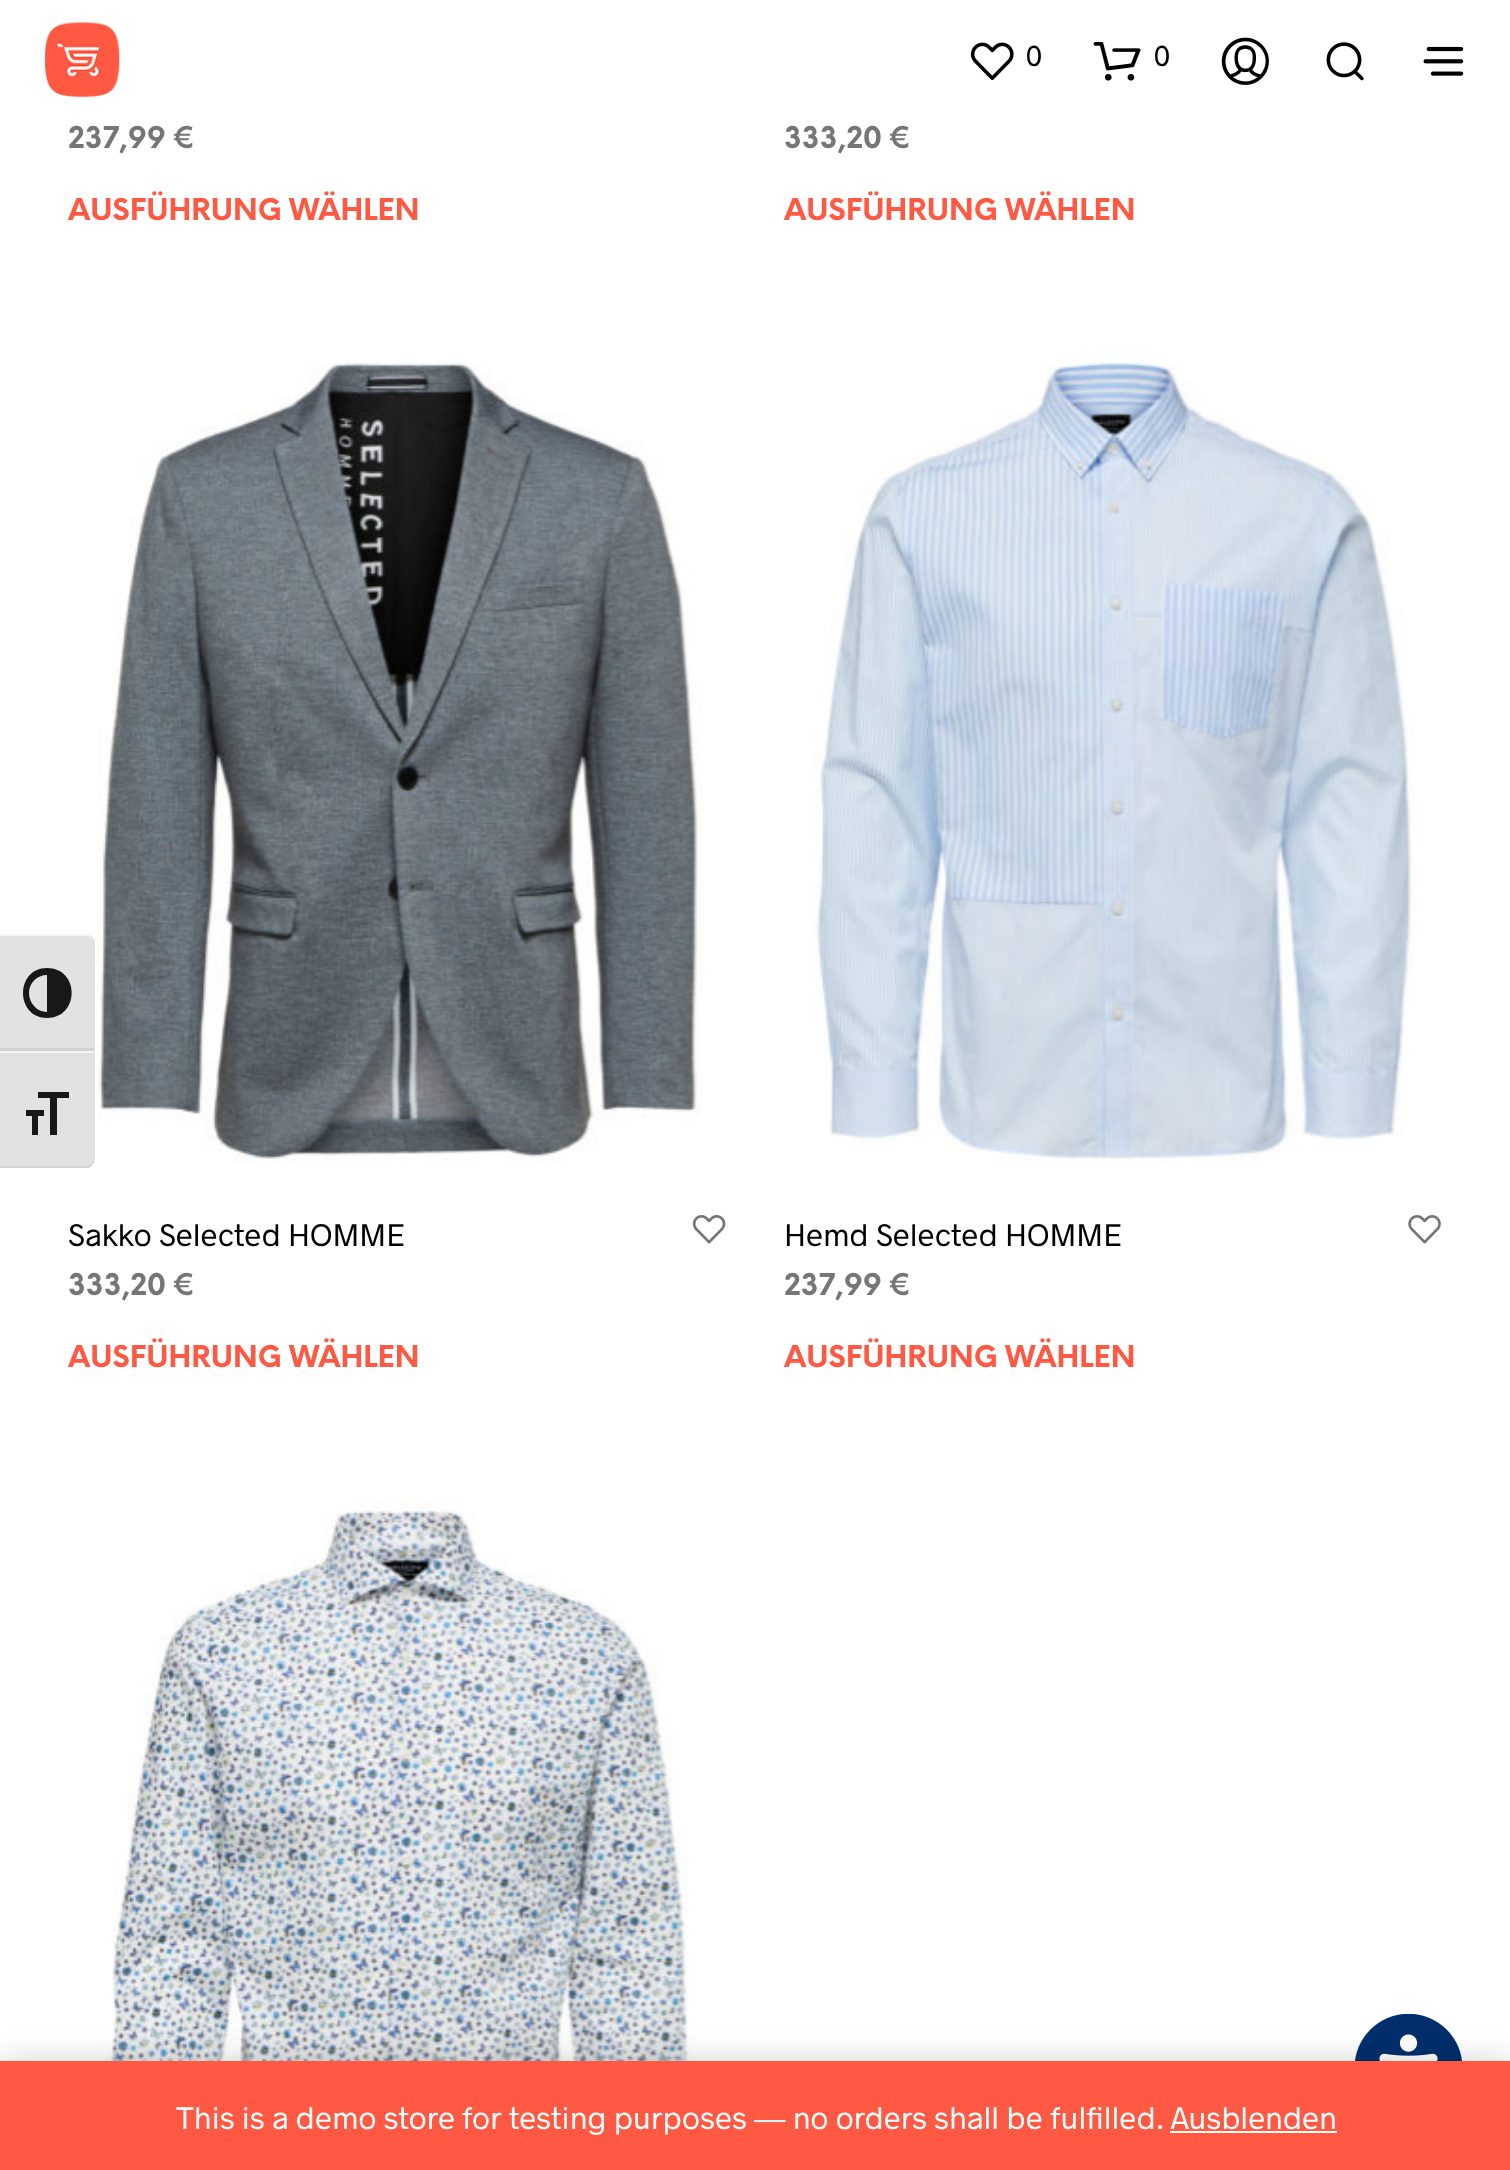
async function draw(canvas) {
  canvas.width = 1510;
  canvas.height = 2170;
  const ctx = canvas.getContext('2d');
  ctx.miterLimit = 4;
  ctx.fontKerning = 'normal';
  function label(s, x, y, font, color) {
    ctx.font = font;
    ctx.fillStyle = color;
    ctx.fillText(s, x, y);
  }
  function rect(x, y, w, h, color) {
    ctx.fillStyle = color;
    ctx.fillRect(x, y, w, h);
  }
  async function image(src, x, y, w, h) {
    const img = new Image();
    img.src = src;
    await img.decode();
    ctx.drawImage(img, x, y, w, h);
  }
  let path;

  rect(0, 0, 1510, 2170, '#fff');
  ctx.fillStyle = '#e2e2e2';
  ctx.beginPath();
  ctx.roundRect(0, 934, 95, 117, [0, 9, 0, 0]);
  ctx.fill();
  ctx.fillStyle = '#f5f5f5';
  path = new Path2D('M0 936H86C90 936 94 939 94 943C94 938 90 934 86 934H0Z');
  ctx.fill(path);
  rect(0, 1048, 94, 3, '#d2d2d2');
  ctx.fillStyle = '#181818';
  path = new Path2D('M47 968C15 968 15 1018 47 1018C80 1018 80 968 47 968ZM29 993C29 983 37 975 47 975V1012C37 1012 29 1003 29 993Z');
  ctx.fill(path);
  ctx.fillStyle = '#e2e2e2';
  ctx.beginPath();
  ctx.roundRect(0, 1051, 95, 117, [0, 0, 9, 0]);
  ctx.fill();
  rect(0, 1051, 94, 2, '#f5f5f5');
  ctx.fillStyle = '#d2d2d2';
  path = new Path2D('M88 1168C91 1167 94 1163 94 1159C94 1162 90 1166 86 1166H0V1168Z');
  ctx.fill(path);
  ctx.fillStyle = '#181818';
  path = new Path2D('M26 1110H44V1116H38V1135H32V1116H26ZM69 1098H57V1135H50V1098H38V1092H69Z');
  ctx.fill(path);
  await image('assets/img1.png', 45, 22, 75, 75);
  await image('assets/img2.png', 970, 42, 44, 38);
  label('0', 1026, 66, '29.25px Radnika', '#000');
  await image('assets/img3.png', 1093, 42, 48, 39);
  label('0', 1154, 66, '29.25px Radnika', '#000');
  await image('assets/img4.png', 1221, 37, 48, 48);
  await image('assets/img5.png', 1326, 42, 38, 39);
  await image('assets/img6.png', 1423, 46, 41, 30);
  label('237,99 €', 68, 148, 'bold 29.25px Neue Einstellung', '#767676');
  label('AUSFÜHRUNG WÄHLEN', 68, 220, 'bold 29.25px Neue Einstellung', '#ff5943');
  label('333,20 €', 784, 148, 'bold 29.25px Neue Einstellung', '#767676');
  label('AUSFÜHRUNG WÄHLEN', 784, 220, 'bold 29.25px Neue Einstellung', '#ff5943');
  await image('assets/img7.png', 98, 363, 604, 802);
  await image('assets/img8.png', 692, 1215, 34, 29);
  label('Sakko Selected HOMME', 68, 1246, '31.5px Radnika', '#000');
  label('333,20 €', 68, 1295, 'bold 29.25px Neue Einstellung', '#767676');
  label('AUSFÜHRUNG WÄHLEN', 68, 1367, 'bold 29.25px Neue Einstellung', '#ff5943');
  await image('assets/img9.png', 813, 350, 602, 816);
  await image('assets/img10.png', 1408, 1215, 33, 29);
  label('Hemd Selected HOMME', 784, 1246, '31.5px Radnika', '#000');
  label('237,99 €', 784, 1295, 'bold 29.25px Neue Einstellung', '#767676');
  label('AUSFÜHRUNG WÄHLEN', 784, 1367, 'bold 29.25px Neue Einstellung', '#ff5943');
  await image('assets/img11.png', 98, 1498, 591, 563);
  await image('assets/img12.png', 1355, 2014, 107, 47);
  ctx.fillStyle = '#00000033';
  ctx.filter = 'blur(16px)';
  ctx.beginPath();
  ctx.rect(0, 2063, 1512, 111);
  ctx.fill();
  ctx.filter = 'none';
  rect(0, 2061, 1510, 109, '#ff5943');
  label('This is a demo store for testing purposes — no orders shall be fulfilled. Ausblenden', 176, 2129, '31.5px Radnika', '#fff');
  rect(1170, 2131, 167, 2, '#fff');
}

draw(document.querySelector('canvas'));
